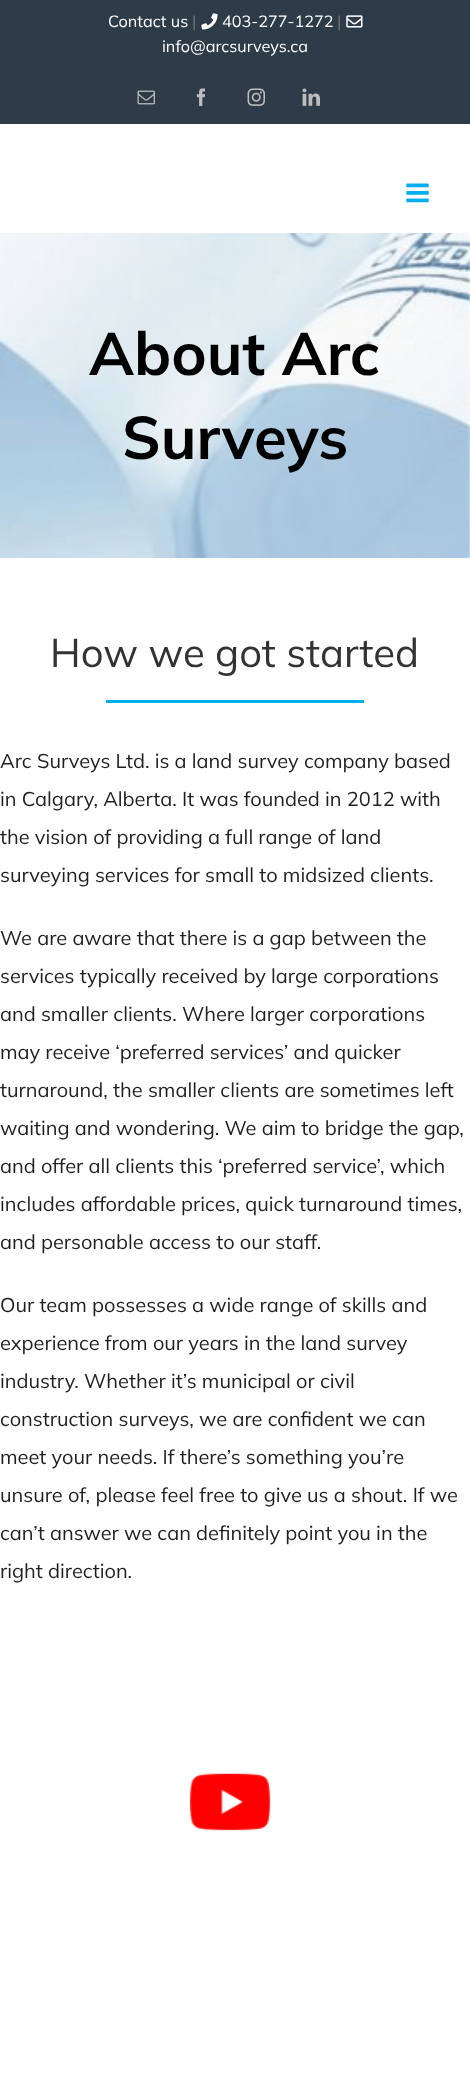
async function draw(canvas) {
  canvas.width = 470;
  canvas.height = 2091;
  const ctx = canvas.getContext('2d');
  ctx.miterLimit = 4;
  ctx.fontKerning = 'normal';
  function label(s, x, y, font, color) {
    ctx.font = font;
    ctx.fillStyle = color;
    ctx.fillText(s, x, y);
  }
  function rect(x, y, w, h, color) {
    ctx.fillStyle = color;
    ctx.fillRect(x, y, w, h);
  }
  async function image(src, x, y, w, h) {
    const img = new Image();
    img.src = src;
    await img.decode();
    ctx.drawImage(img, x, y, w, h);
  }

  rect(0, 0, 470, 2091, '#fff');
  rect(0, 0, 470, 124, '#2e3b48');
  label('Contact us', 108, 27, '16.25px Mulish', '#fff');
  label('|', 192, 27, '16.25px Mulish', '#747474');
  await image('assets/img1.png', 201, 13, 17, 17);
  label('403-277-1272', 222, 27, '16.25px Mulish', '#fff');
  label('|', 337, 27, '16.25px Mulish', '#747474');
  await image('assets/img2.png', 346, 15, 17, 13);
  label('info@arcsurveys.ca', 162, 52, '16.25px Mulish', '#fff');
  await image('assets/img3.png', 137, 90, 18, 15);
  await image('assets/img4.png', 196, 88, 10, 18);
  await image('assets/img5.png', 247, 88, 18, 18);
  await image('assets/img6.png', 302, 88, 18, 18);
  await image('assets/img7.png', 406, 183, 23, 20);
  await image('assets/img8.png', 0, 233, 470, 325);
  label('About Arc', 89, 375, 'bold 60px Mulish', '#000');
  label('Surveys', 122, 459, 'bold 60px Mulish', '#000');
  label('How we got started', 50, 667, '40px Mulish', '#333');
  rect(106, 700, 258, 3, '#00adee');
  label('Arc Surveys Ltd. is a land survey company based', 0, 768, '20px Mulish', '#221e20');
  label('in Calgary, Alberta. It was founded in 2012 with', 0, 806, '20px Mulish', '#221e20');
  label('the vision of providing a full range of land', 0, 844, '20px Mulish', '#221e20');
  label('surveying services for small to midsized clients.', 0, 882, '20px Mulish', '#221e20');
  label('We are aware that there is a gap between the', 0, 945, '20px Mulish', '#221e20');
  label('services typically received by large corporations', 0, 983, '20px Mulish', '#221e20');
  label('and smaller clients. Where larger corporations', 0, 1021, '20px Mulish', '#221e20');
  label('may receive ‘preferred services’ and quicker', 0, 1059, '20px Mulish', '#221e20');
  label('turnaround, the smaller clients are sometimes left', 0, 1097, '20px Mulish', '#221e20');
  label('waiting and wondering. We aim to bridge the gap,', 0, 1135, '20px Mulish', '#221e20');
  label('and offer all clients this ‘preferred service’, which', 0, 1173, '20px Mulish', '#221e20');
  label('includes affordable prices, quick turnaround times,', 0, 1211, '20px Mulish', '#221e20');
  label('and personable access to our staff.', 0, 1249, '20px Mulish', '#221e20');
  label('Our team possesses a wide range of skills and', 0, 1312, '20px Mulish', '#221e20');
  label('experience from our years in the land survey', 0, 1350, '20px Mulish', '#221e20');
  label('industry. Whether it’s municipal or civil', 0, 1388, '20px Mulish', '#221e20');
  label('construction surveys, we are confident we can', 0, 1426, '20px Mulish', '#221e20');
  label('meet your needs. If there’s something you’re', 0, 1464, '20px Mulish', '#221e20');
  label('unsure of, please feel free to give us a shout. If we', 0, 1502, '20px Mulish', '#221e20');
  label('can’t answer we can definitely point you in the', 0, 1540, '20px Mulish', '#221e20');
  label('right direction.', 0, 1578, '20px Mulish', '#221e20');
  await image('assets/img9.png', 190, 1773, 81, 58);
}

draw(document.querySelector('canvas'));
